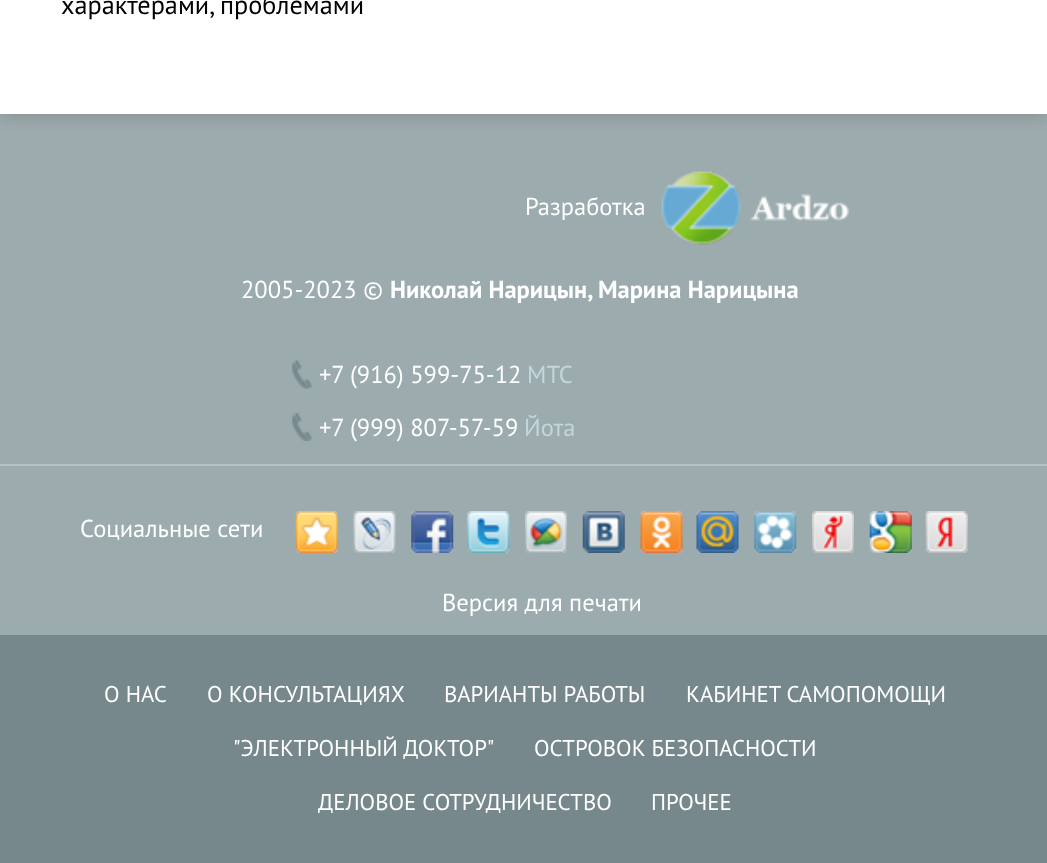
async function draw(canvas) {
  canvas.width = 1047;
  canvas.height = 863;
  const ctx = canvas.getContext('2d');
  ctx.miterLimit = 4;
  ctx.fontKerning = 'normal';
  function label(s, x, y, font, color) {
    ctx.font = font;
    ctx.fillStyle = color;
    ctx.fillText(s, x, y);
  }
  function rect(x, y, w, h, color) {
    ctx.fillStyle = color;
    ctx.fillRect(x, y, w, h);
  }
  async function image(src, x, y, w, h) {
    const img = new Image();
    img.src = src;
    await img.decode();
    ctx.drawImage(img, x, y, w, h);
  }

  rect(0, 0, 1047, 863, '#9cabae');
  ctx.fillStyle = '#7a7a7ab3';
  ctx.filter = 'blur(9px)';
  ctx.beginPath();
  ctx.rect(0, -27, 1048, 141);
  ctx.fill();
  ctx.filter = 'none';
  rect(0, 0, 1047, 114, '#fff');
  label('характерами, проблемами', 61, 14, '26.25px PT Sans', '#000');
  await image('assets/img1.png', 661, 171, 188, 74);
  label('Разработка', 525, 215, '24.5px PT Sans', '#fff');
  label('2005-2023 ©', 241, 298, '24.5px PT Sans', '#fff');
  label('Николай Нарицын, Марина Нарицына', 390, 298, 'bold 24.5px PT Sans', '#fff');
  await image('assets/img2.png', 292, 360, 20, 29);
  label('+7 (916) 599-75-12', 319, 383, '24.5px PT Sans', '#fff');
  label('МТС', 527, 383, '24.5px PT Sans', '#c5d6da');
  await image('assets/img3.png', 292, 413, 20, 28);
  label('+7 (999) 807-57-59', 319, 436, '24.5px PT Sans', '#fff');
  label('Йота', 524, 436, '24.5px PT Sans', '#c5d6da');
  rect(0, 464, 1047, 2, '#b2c2c5');
  label('Социальные сети', 80, 537, '24.5px PT Sans', '#fff');
  await image('assets/img4.png', 295, 511, 43, 42);
  await image('assets/img5.png', 353, 511, 43, 42);
  await image('assets/img6.png', 411, 511, 43, 42);
  await image('assets/img7.png', 467, 511, 43, 42);
  await image('assets/img8.png', 525, 511, 42, 42);
  await image('assets/img9.png', 582, 511, 43, 42);
  await image('assets/img10.png', 640, 511, 43, 42);
  await image('assets/img11.png', 696, 511, 43, 42);
  await image('assets/img12.png', 754, 511, 43, 42);
  await image('assets/img13.png', 812, 511, 42, 42);
  await image('assets/img14.png', 869, 511, 43, 42);
  await image('assets/img15.png', 925, 511, 43, 42);
  label('Версия для печати', 442, 611, '24.5px PT Sans', '#fff');
  rect(0, 635, 1047, 228, '#76888c');
  label('О НАС', 104, 702, '22.75px PT Sans', '#fff');
  label('О КОНСУЛЬТАЦИЯХ', 207, 702, '22.75px PT Sans', '#fff');
  label('ВАРИАНТЫ РАБОТЫ', 444, 702, '22.75px PT Sans', '#fff');
  label('КАБИНЕТ САМОПОМОЩИ', 686, 702, '22.75px PT Sans', '#fff');
  label('"ЭЛЕКТРОННЫЙ ДОКТОР"', 233, 756, '22.75px PT Sans', '#fff');
  label('ОСТРОВОК БЕЗОПАСНОСТИ', 534, 756, '22.75px PT Sans', '#fff');
  label('ДЕЛОВОЕ СОТРУДНИЧЕСТВО', 318, 810, '22.75px PT Sans', '#fff');
  label('ПРОЧЕЕ', 651, 810, '22.75px PT Sans', '#fff');
}

draw(document.querySelector('canvas'));
